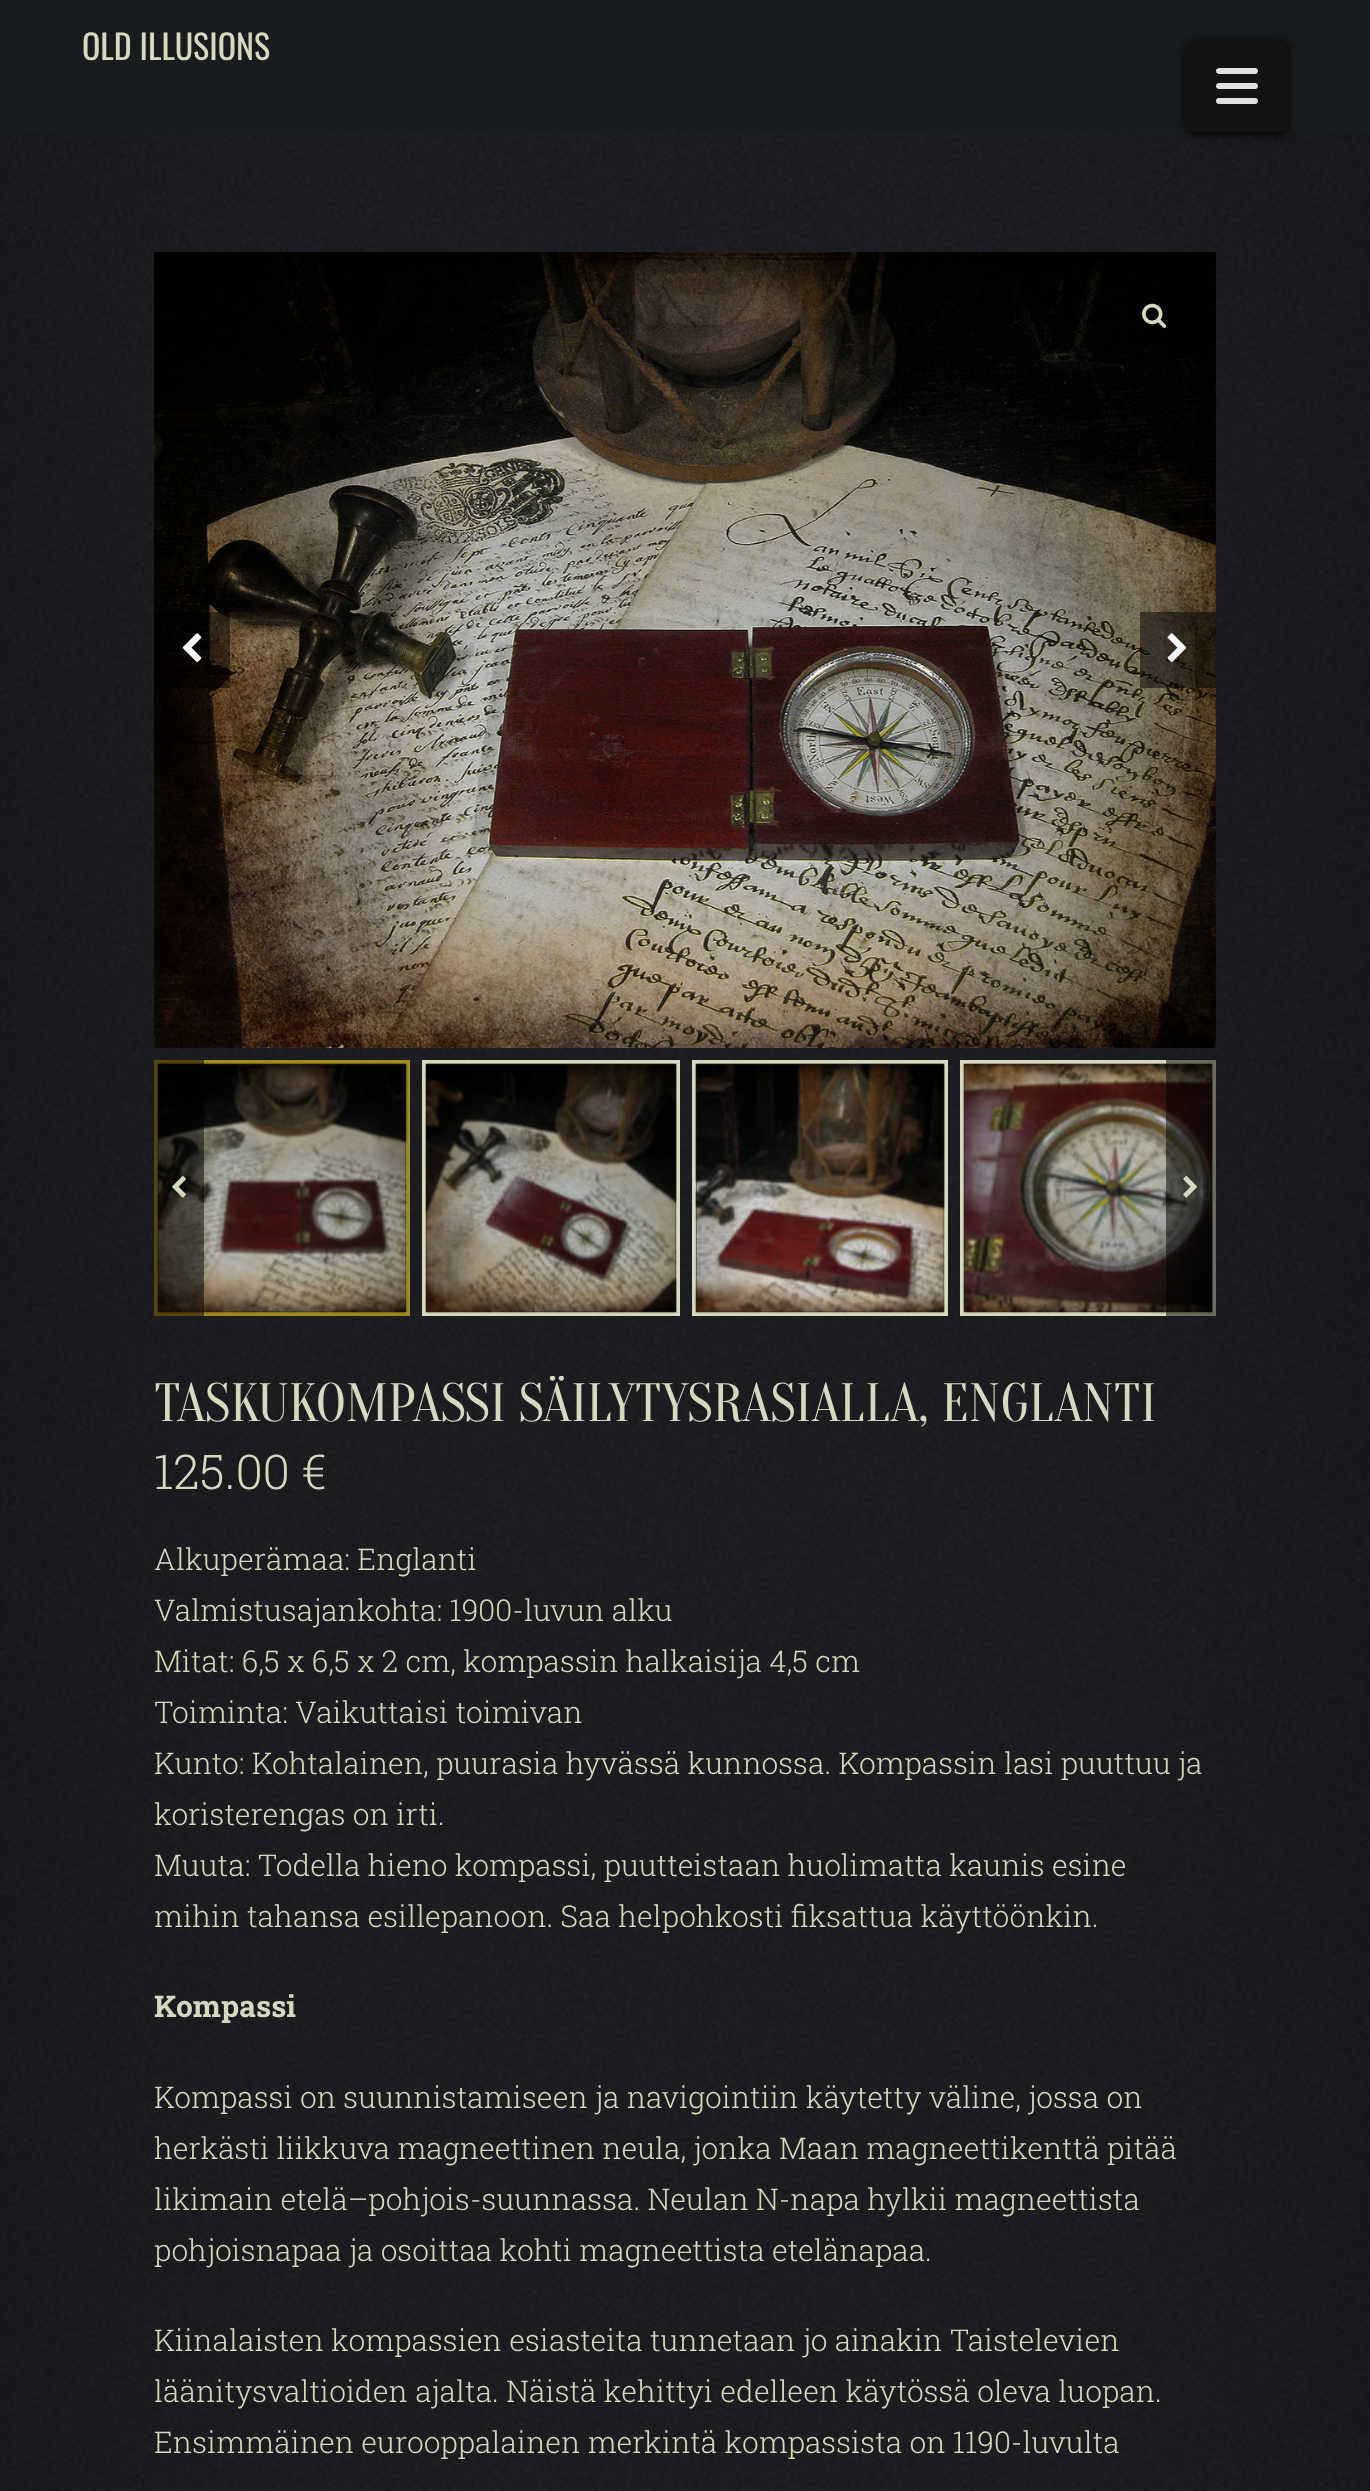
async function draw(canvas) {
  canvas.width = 1370;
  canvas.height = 2491;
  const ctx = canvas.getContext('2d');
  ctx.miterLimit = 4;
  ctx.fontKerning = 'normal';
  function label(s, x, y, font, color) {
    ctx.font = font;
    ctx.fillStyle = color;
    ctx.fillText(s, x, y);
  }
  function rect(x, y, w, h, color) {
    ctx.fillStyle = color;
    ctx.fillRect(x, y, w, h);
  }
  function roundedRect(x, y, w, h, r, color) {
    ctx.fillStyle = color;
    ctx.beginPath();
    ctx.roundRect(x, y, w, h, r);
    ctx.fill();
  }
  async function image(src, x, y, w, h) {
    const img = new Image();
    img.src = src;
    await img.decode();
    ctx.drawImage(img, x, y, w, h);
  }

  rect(0, 0, 1370, 2491, '#fff');
  await image('assets/img1.png', 0, 132, 1370, 2359);
  rect(0, 0, 1370, 132, '#191c1e');
  label('OLD ILLUSIONS', 82, 60, '34px Oswald', '#d6d9be');
  ctx.fillStyle = '#000';
  ctx.filter = 'blur(4px)';
  ctx.beginPath();
  ctx.roundRect(1186, 42, 102, 92, 8);
  ctx.fill();
  ctx.filter = 'none';
  roundedRect(1186, 40, 102, 92, 8, '#121212');
  await image('assets/img2.png', 1216, 68, 42, 36);
  await image('assets/img3.png', 154, 252, 1062, 796);
  await image('assets/img4.png', 1142, 303, 25, 25);
  rect(154, 612, 76, 76, '#00000080');
  await image('assets/img5.png', 182, 633, 20, 29);
  rect(1140, 612, 76, 76, '#00000080');
  await image('assets/img6.png', 1167, 633, 20, 29);
  ctx.strokeStyle = '#a38a1d';
  ctx.lineWidth = 4;
  ctx.strokeRect(156, 1062, 252, 252);
  await image('assets/img7.png', 157, 1063, 251, 251);
  ctx.strokeStyle = '#d6d9be';
  ctx.strokeRect(424, 1062, 254, 252);
  await image('assets/img8.png', 425, 1063, 252, 251);
  ctx.strokeRect(694, 1062, 252, 252);
  await image('assets/img9.png', 694, 1063, 251, 251);
  ctx.strokeRect(962, 1062, 252, 252);
  await image('assets/img10.png', 962, 1063, 251, 251);
  rect(154, 1060, 50, 256, '#00000080');
  await image('assets/img11.png', 172, 1176, 14, 22);
  rect(1166, 1060, 50, 256, '#00000080');
  await image('assets/img12.png', 1183, 1176, 14, 22);
  ctx.save();
  ctx.beginPath();
  ctx.rect(154, 1376, 1062, 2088);
  ctx.clip();
  label('TASKUKOMPASSI SÄILYTYSRASIALLA, ENGLANTI', 154, 1421, '54px Oranienbaum', '#d6d9be');
  ctx.restore();
  label('125.00 €', 154, 1489, '300 48px Roboto Slab', '#d6d9be');
  label('Alkuperämaa: Englanti', 154, 1570, '300 30px Roboto Slab', '#d6d9be');
  label('Valmistusajankohta: 1900-luvun alku', 154, 1621, '300 30px Roboto Slab', '#d6d9be');
  label('Mitat: 6,5 x 6,5 x 2 cm, kompassin halkaisija 4,5 cm', 154, 1672, '300 30px Roboto Slab', '#d6d9be');
  label('Toiminta: Vaikuttaisi toimivan', 154, 1723, '300 30px Roboto Slab', '#d6d9be');
  label('Kunto: Kohtalainen, puurasia hyvässä kunnossa. Kompassin lasi puuttuu ja', 154, 1774, '300 30px Roboto Slab', '#d6d9be');
  label('koristerengas on irti.', 154, 1825, '300 30px Roboto Slab', '#d6d9be');
  label('Muuta: Todella hieno kompassi, puutteistaan huolimatta kaunis esine', 154, 1876, '300 30px Roboto Slab', '#d6d9be');
  label('mihin tahansa esillepanoon. Saa helpohkosti fiksattua käyttöönkin.', 154, 1927, '300 30px Roboto Slab', '#d6d9be');
  label('Kompassi', 154, 2017, 'bold 30px Roboto Slab', '#d6d9be');
  label('Kompassi on suunnistamiseen ja navigointiin käytetty väline, jossa on', 154, 2108, '300 30px Roboto Slab', '#d6d9be');
  label('herkästi liikkuva magneettinen neula, jonka Maan magneettikenttä pitää', 154, 2159, '300 30px Roboto Slab', '#d6d9be');
  label('likimain etelä–pohjois-suunnassa. Neulan N-napa hylkii magneettista', 154, 2210, '300 30px Roboto Slab', '#d6d9be');
  label('pohjoisnapaa ja osoittaa kohti magneettista etelänapaa.', 154, 2261, '300 30px Roboto Slab', '#d6d9be');
  label('Kiinalaisten kompassien esiasteita tunnetaan jo ainakin Taistelevien', 154, 2351, '300 30px Roboto Slab', '#d6d9be');
  label('läänitysvaltioiden ajalta. Näistä kehittyi edelleen käytössä oleva luopan.', 154, 2402, '300 30px Roboto Slab', '#d6d9be');
  label('Ensimmäinen eurooppalainen merkintä kompassista on 1190-luvulta', 154, 2453, '300 30px Roboto Slab', '#d6d9be');
}

draw(document.querySelector('canvas'));
